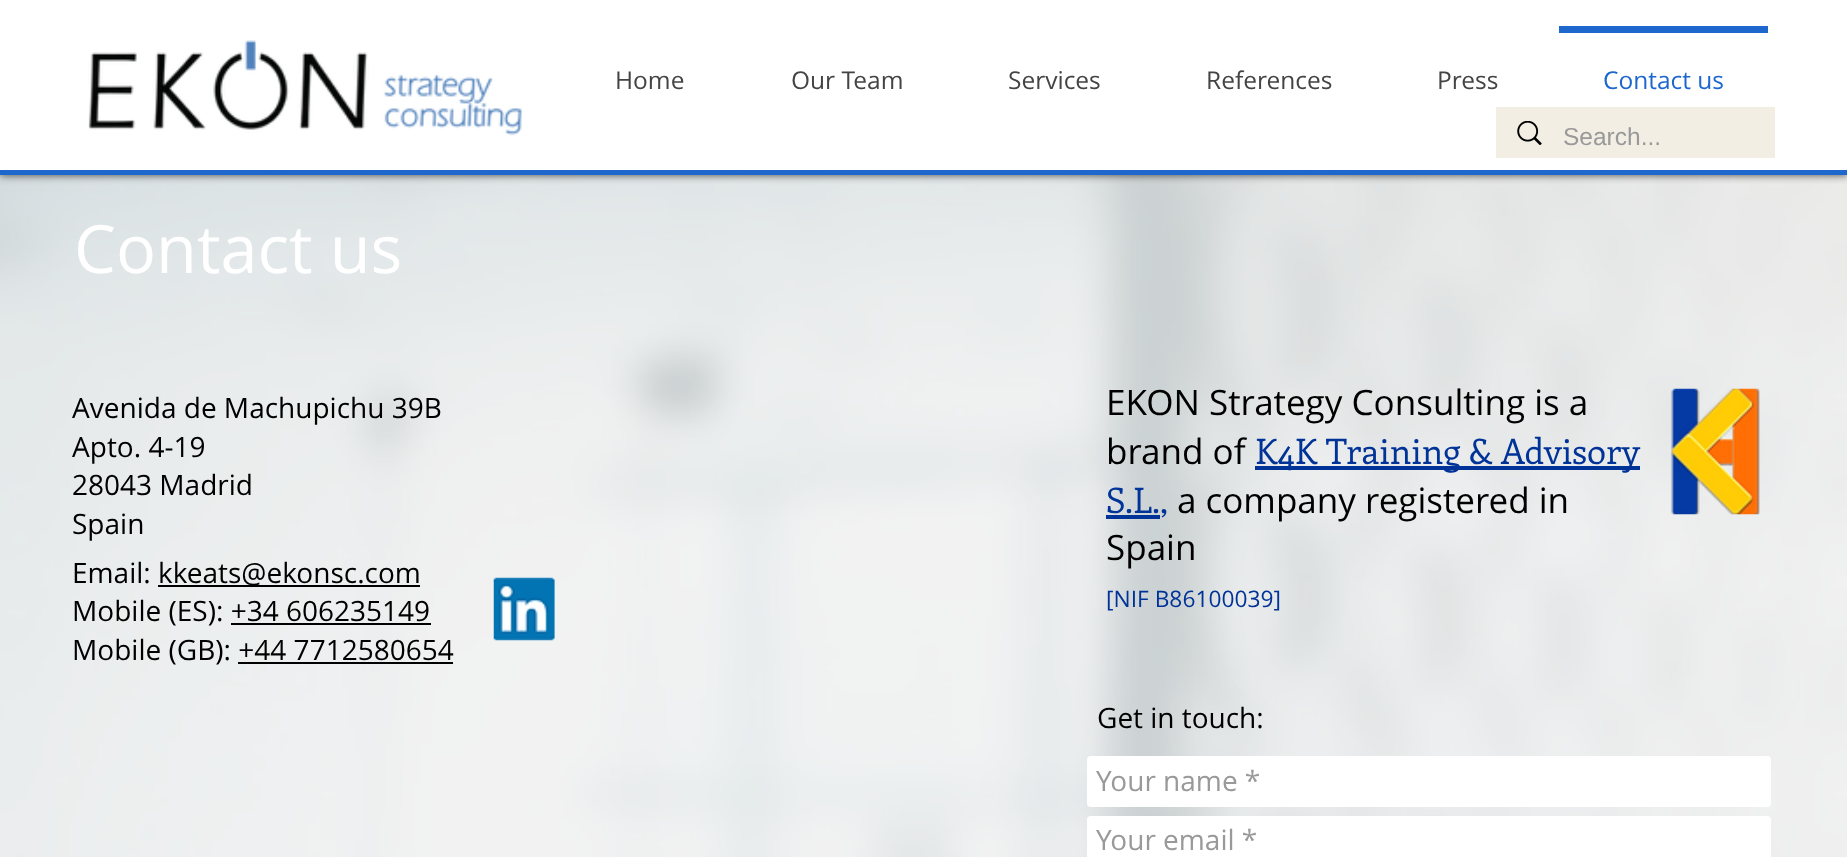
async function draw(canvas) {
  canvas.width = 1847;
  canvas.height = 857;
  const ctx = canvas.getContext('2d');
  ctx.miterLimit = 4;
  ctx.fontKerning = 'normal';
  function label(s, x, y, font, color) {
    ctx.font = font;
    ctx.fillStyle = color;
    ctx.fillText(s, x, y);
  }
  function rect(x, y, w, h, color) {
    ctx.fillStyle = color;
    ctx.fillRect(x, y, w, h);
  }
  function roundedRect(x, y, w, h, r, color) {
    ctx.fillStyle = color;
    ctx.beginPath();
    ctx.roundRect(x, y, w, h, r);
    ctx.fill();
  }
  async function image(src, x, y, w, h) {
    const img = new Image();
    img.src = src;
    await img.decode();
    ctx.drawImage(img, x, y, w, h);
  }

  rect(0, 0, 1847, 857, '#eee');
  await image('assets/img5.png', 0, 175, 1847, 682);
  ctx.fillStyle = '#000000b3';
  ctx.filter = 'blur(4.5px)';
  ctx.beginPath();
  ctx.rect(0, 0, 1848, 175);
  ctx.fill();
  ctx.filter = 'none';
  rect(0, 0, 1847, 170, '#fff');
  rect(0, 170, 1847, 5, '#1d67cd');
  await image('assets/img1.png', 88, 40, 434, 96);
  label('Home', 615, 89, '24.5px Open Sans', '#444');
  label('Our Team', 791, 89, '24.5px Open Sans', '#444');
  label('Services', 1008, 89, '24.5px Open Sans', '#444');
  label('References', 1206, 89, '24.5px Open Sans', '#444');
  label('Press', 1437, 89, '24.5px Open Sans', '#444');
  rect(1559, 26, 209, 7, '#1d67cd');
  label('Contact us', 1603, 89, '24.5px Open Sans', '#1d67cd');
  rect(1496, 107, 279, 51, '#f2eee4');
  await image('assets/img2.png', 1517, 121, 25, 24);
  label('Search...', 1563, 145, '24.5px Liberation Sans', '#999');
  label('Contact us', 74, 273, '66.5px Open Sans', '#fff');
  label('Avenida de Machupichu 39B', 72, 418, '28px Open Sans', '#000');
  label('Apto. 4-19', 72, 457, '28px Open Sans', '#000');
  label('28043 Madrid', 72, 495, '28px Open Sans', '#000');
  label('Spain', 72, 534, '28px Open Sans', '#000');
  label('EKON Strategy Consulting is a', 1106, 415, '35px Open Sans', '#000');
  label('brand of', 1106, 464, '35px Open Sans', '#000');
  rect(1255, 466, 385, 4, '#003397');
  label('K4K Training & Advisory', 1255, 464, '35px Enriqueta', '#003397');
  rect(1106, 515, 54, 4, '#003397');
  label('S.L.,', 1106, 513, '35px Enriqueta', '#003397');
  label('a company registered in', 1177, 513, '35px Open Sans', '#000');
  label('Spain', 1106, 560, '35px Open Sans', '#000');
  label('[NIF B86100039]', 1106, 607, '22.75px Open Sans', '#003397');
  await image('assets/img3.png', 1670, 388, 90, 127);
  label('Email:', 72, 583, '28px Open Sans', '#000');
  rect(158, 585, 262, 2, '#000');
  label('kkeats@ekonsc.com', 158, 583, '28px Open Sans', '#000');
  label('Mobile (ES): +34 606235149', 72, 621, '28px Open Sans', '#000');
  rect(231, 623, 200, 2, '#000');
  label('Mobile (GB): +44 7712580654', 72, 660, '28px Open Sans', '#000');
  rect(238, 662, 215, 2, '#000');
  await image('assets/img4.png', 493, 577, 62, 64);
  label('Get in touch:', 1097, 728, '28px Open Sans', '#000');
  roundedRect(1087, 756, 684, 51, 4, '#fff');
  label('Your name *', 1096, 791, '28px Open Sans', '#999');
  roundedRect(1087, 816, 684, 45, 4, '#fff');
  label('Your email *', 1096, 850, '28px Open Sans', '#999');
}

draw(document.querySelector('canvas'));
